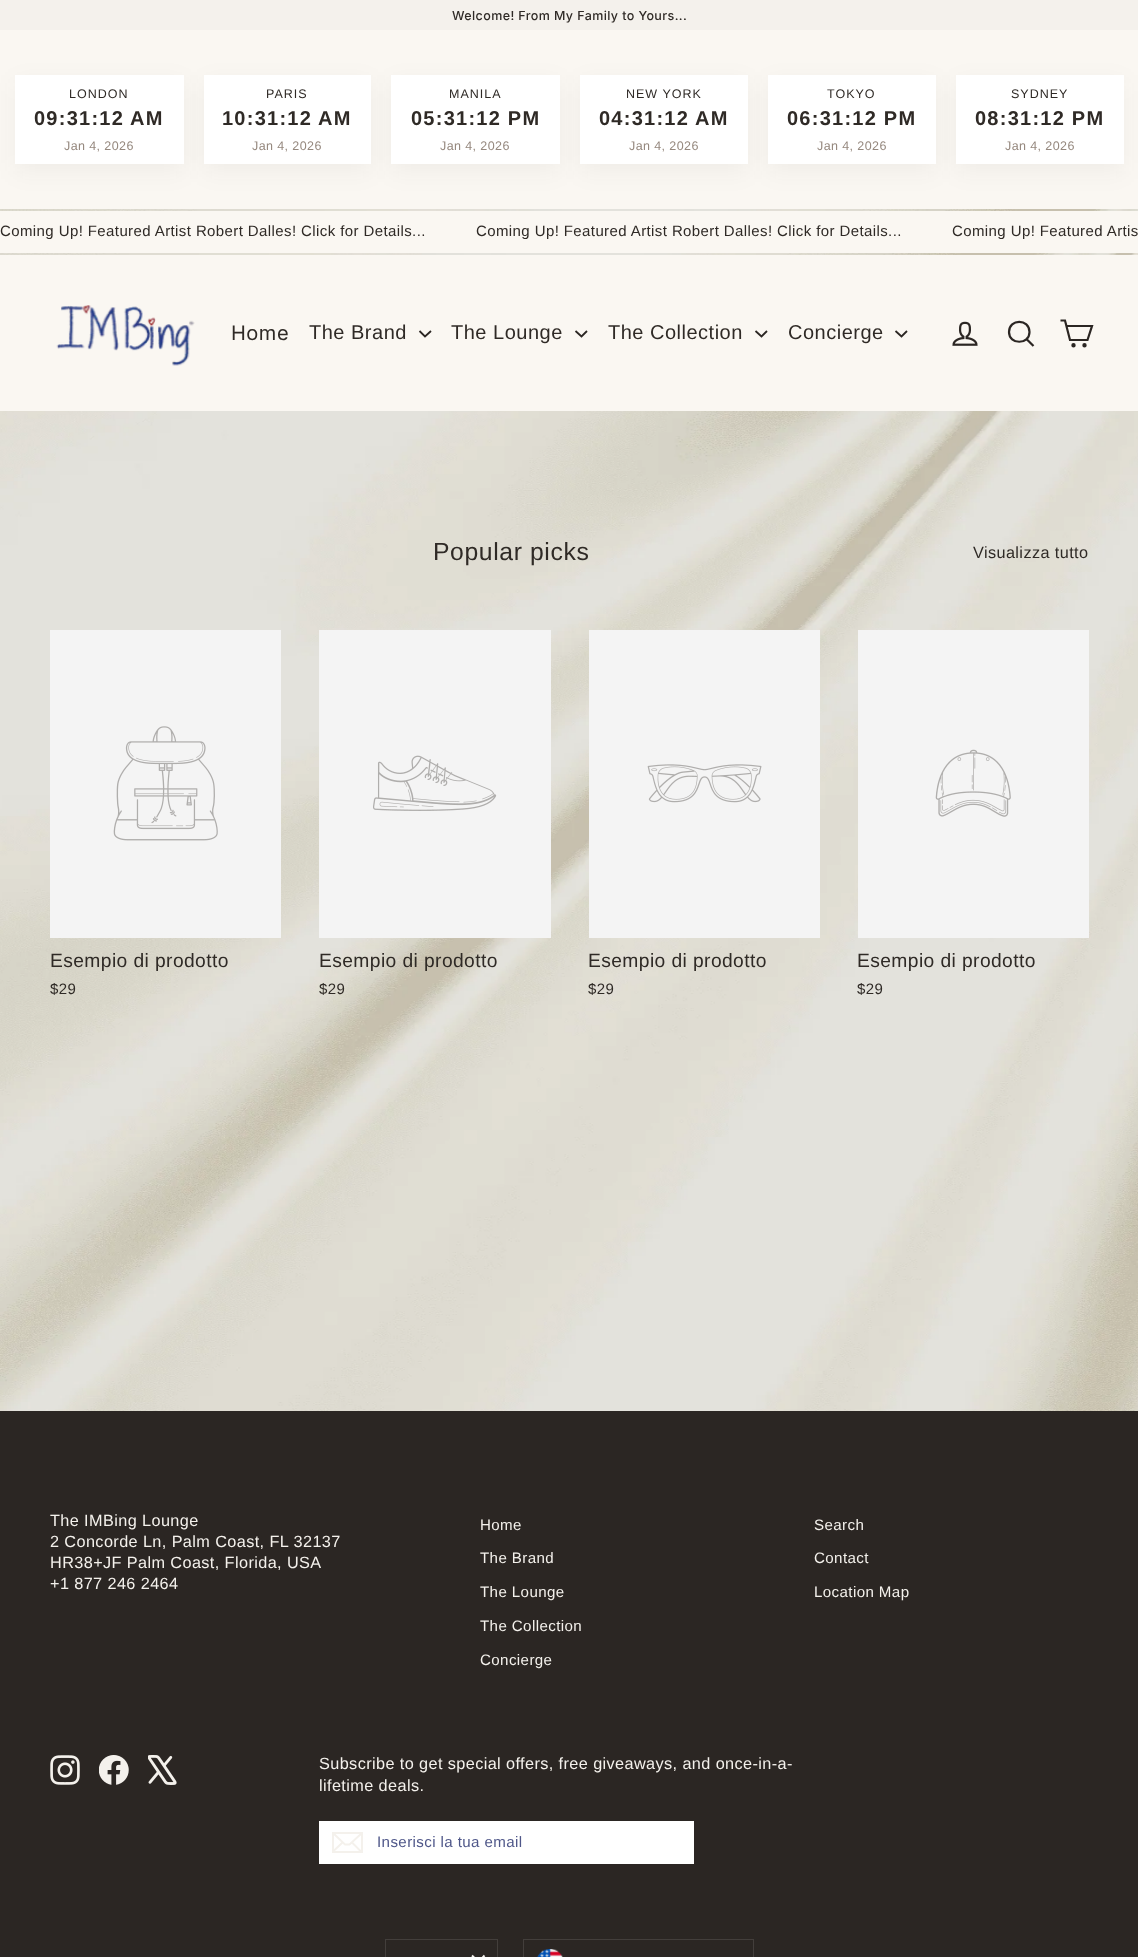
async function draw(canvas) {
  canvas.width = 1138;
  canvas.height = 1957;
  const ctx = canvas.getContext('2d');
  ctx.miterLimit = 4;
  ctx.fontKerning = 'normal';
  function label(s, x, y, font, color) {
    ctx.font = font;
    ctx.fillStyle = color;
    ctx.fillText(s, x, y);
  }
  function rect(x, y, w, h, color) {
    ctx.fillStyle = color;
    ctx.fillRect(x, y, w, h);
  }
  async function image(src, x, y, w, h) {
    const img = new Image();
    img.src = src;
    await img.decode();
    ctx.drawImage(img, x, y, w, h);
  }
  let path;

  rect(0, 0, 1138, 1957, '#fff');
  await image('assets/img1.png', 0, 209, 1138, 1202);
  rect(0, 0, 1138, 30, '#f4f1ec');
  ctx.letterSpacing = '0.4px';
  label('Welcome! From My Family to Yours...', 452, 20, '500 12.5px Inter', '#2f2a26');
  rect(0, 30, 1138, 179, '#faf7f2');
  ctx.fillStyle = '#2b26230d';
  ctx.filter = 'blur(12.5px)';
  ctx.beginPath();
  ctx.rect(15, 83, 169, 88);
  ctx.fill();
  ctx.filter = 'none';
  rect(15, 75, 169, 89, '#fff');
  ctx.letterSpacing = '1px';
  label('LONDON', 69, 98, '12.5px Liberation Sans', '#2f2a26');
  ctx.letterSpacing = '1.25px';
  label('09:31:12 AM', 34, 125, 'bold 20px Liberation Sans', '#2f2a26');
  ctx.letterSpacing = '0.4px';
  label('Jan 4, 2026', 64, 150, '12.5px Liberation Sans', '#95887e');
  ctx.fillStyle = '#2b26230d';
  ctx.filter = 'blur(12.5px)';
  ctx.beginPath();
  ctx.rect(204, 83, 167, 88);
  ctx.fill();
  ctx.filter = 'none';
  rect(204, 75, 167, 89, '#fff');
  ctx.letterSpacing = '1px';
  label('PARIS', 266, 98, '12.5px Liberation Sans', '#2f2a26');
  ctx.letterSpacing = '1.25px';
  label('10:31:12 AM', 222, 125, 'bold 20px Liberation Sans', '#2f2a26');
  ctx.letterSpacing = '0.4px';
  label('Jan 4, 2026', 252, 150, '12.5px Liberation Sans', '#95887e');
  ctx.fillStyle = '#2b26230d';
  ctx.filter = 'blur(12.5px)';
  ctx.beginPath();
  ctx.rect(391, 83, 169, 88);
  ctx.fill();
  ctx.filter = 'none';
  rect(391, 75, 169, 89, '#fff');
  ctx.letterSpacing = '1px';
  label('MANILA', 449, 98, '12.5px Liberation Sans', '#2f2a26');
  ctx.letterSpacing = '1.25px';
  label('05:31:12 PM', 411, 125, 'bold 20px Liberation Sans', '#2f2a26');
  ctx.letterSpacing = '0.4px';
  label('Jan 4, 2026', 440, 150, '12.5px Liberation Sans', '#95887e');
  ctx.fillStyle = '#2b26230d';
  ctx.filter = 'blur(12.5px)';
  ctx.beginPath();
  ctx.rect(580, 83, 168, 88);
  ctx.fill();
  ctx.filter = 'none';
  rect(580, 75, 168, 89, '#fff');
  ctx.letterSpacing = '1px';
  label('NEW YORK', 626, 98, '12.5px Liberation Sans', '#2f2a26');
  ctx.letterSpacing = '1.25px';
  label('04:31:12 AM', 599, 125, 'bold 20px Liberation Sans', '#2f2a26');
  ctx.letterSpacing = '0.4px';
  label('Jan 4, 2026', 629, 150, '12.5px Liberation Sans', '#95887e');
  ctx.fillStyle = '#2b26230d';
  ctx.filter = 'blur(12.5px)';
  ctx.beginPath();
  ctx.rect(768, 83, 168, 88);
  ctx.fill();
  ctx.filter = 'none';
  rect(768, 75, 168, 89, '#fff');
  ctx.letterSpacing = '1px';
  label('TOKYO', 827, 98, '12.5px Liberation Sans', '#2f2a26');
  ctx.letterSpacing = '1.25px';
  label('06:31:12 PM', 787, 125, 'bold 20px Liberation Sans', '#2f2a26');
  ctx.letterSpacing = '0.4px';
  label('Jan 4, 2026', 817, 150, '12.5px Liberation Sans', '#95887e');
  ctx.fillStyle = '#2b26230d';
  ctx.filter = 'blur(12.5px)';
  ctx.beginPath();
  ctx.rect(956, 83, 168, 88);
  ctx.fill();
  ctx.filter = 'none';
  rect(956, 75, 168, 89, '#fff');
  ctx.letterSpacing = '1px';
  label('SYDNEY', 1011, 98, '12.5px Liberation Sans', '#2f2a26');
  ctx.letterSpacing = '1.25px';
  label('08:31:12 PM', 975, 125, 'bold 20px Liberation Sans', '#2f2a26');
  ctx.letterSpacing = '0.4px';
  label('Jan 4, 2026', 1005, 150, '12.5px Liberation Sans', '#95887e');
  rect(0, 211, 1138, 42, '#faf7f2');
  label('Coming Up! Featured Artist Robert Dalles! Click for Details...', 0, 236, '15px Liberation Sans', '#2f2a26');
  label('Coming Up! Featured Artist Robert Dalles! Click for Details...', 476, 236, '15px Liberation Sans', '#2f2a26');
  label('Coming Up! Featured Artis', 952, 236, '15px Liberation Sans', '#2f2a26');
  rect(0, 255, 1138, 156, '#faf7f2');
  await image('assets/img2.png', 56, 305, 139, 61);
  ctx.letterSpacing = '0.5px';
  label('Home', 231, 340, '20px Inter', '#2f2a26');
  label('The Brand', 309, 339, '20px Liberation Sans', '#2f2a26');
  path = new Path2D('M419.5 331L425 336.5L431 331');
  ctx.strokeStyle = '#2b2623';
  ctx.lineWidth = 1.8;
  ctx.stroke(path);
  label('The Lounge', 451, 339, '20px Liberation Sans', '#2f2a26');
  path = new Path2D('M575.5 331L581.5 336.5L587 331');
  ctx.stroke(path);
  label('The Collection', 608, 339, '20px Liberation Sans', '#2f2a26');
  path = new Path2D('M755.5 331L761.5 336.5L767 331');
  ctx.stroke(path);
  label('Concierge', 788, 339, '20px Liberation Sans', '#2f2a26');
  path = new Path2D('M895.5 331L901.5 336.5L907 331');
  ctx.stroke(path);
  await image('assets/img3.png', 952, 321, 26, 25);
  path = new Path2D('M1029.5 332C1029.5 345 1009 345 1009 332C1009 318.5 1029.5 318.5 1029.5 332ZM1033.5 346L1026.5 339');
  ctx.lineWidth = 2.2;
  ctx.stroke(path);
  path = new Path2D('M1066.5 326H1092L1087.5 340H1070L1065 320.5H1060.5');
  ctx.stroke(path);
  ctx.beginPath();
  ctx.arc(1073.5, 345.2, 1.1, 0, 2 * Math.PI);
  ctx.stroke();
  ctx.beginPath();
  ctx.arc(1084.5, 345.2, 1.1, 0, 2 * Math.PI);
  ctx.stroke();
  ctx.letterSpacing = '0.6px';
  label('Popular picks', 433, 560, '24.75px Liberation Sans', '#2f2a26');
  ctx.letterSpacing = '0.4px';
  label('Visualizza tutto', 973, 558, '16.25px Liberation Sans', '#2f2a26');
  rect(50, 630, 231, 308, '#f4f4f4');
  await image('assets/img4.png', 113, 726, 105, 115);
  label('Esempio di prodotto', 50, 967, '19.25px Liberation Sans', '#2f2a26');
  label('$29', 50, 994, '15px Liberation Sans', '#2f2a26');
  rect(319, 630, 232, 308, '#f4f4f4');
  await image('assets/img5.png', 373, 755, 124, 56);
  label('Esempio di prodotto', 319, 967, '19.25px Liberation Sans', '#2f2a26');
  label('$29', 319, 994, '15px Liberation Sans', '#2f2a26');
  rect(589, 630, 231, 308, '#f4f4f4');
  await image('assets/img6.png', 647, 764, 115, 39);
  label('Esempio di prodotto', 588, 967, '19.25px Liberation Sans', '#2f2a26');
  label('$29', 588, 994, '15px Liberation Sans', '#2f2a26');
  rect(858, 630, 231, 308, '#f4f4f4');
  await image('assets/img7.png', 935, 749, 76, 68);
  label('Esempio di prodotto', 857, 967, '19.25px Liberation Sans', '#2f2a26');
  label('$29', 857, 994, '15px Liberation Sans', '#2f2a26');
  rect(0, 1411, 1138, 546, '#2b2623');
  label('The IMBing Lounge', 50, 1526, '16.25px Liberation Sans', '#f4f1ec');
  label('2 Concorde Ln, Palm Coast, FL 32137', 50, 1547, '16.25px Liberation Sans', '#f4f1ec');
  label('HR38+JF Palm Coast, Florida, USA', 50, 1568, '16.25px Liberation Sans', '#f4f1ec');
  label('+1 877 246 2464', 50, 1589, '16.25px Liberation Sans', '#f4f1ec');
  label('Home', 480, 1530, '15.1px Liberation Sans', '#f4f1ec');
  label('The Brand', 480, 1563, '15.1px Liberation Sans', '#f4f1ec');
  label('The Lounge', 480, 1597, '15.1px Liberation Sans', '#f4f1ec');
  label('The Collection', 480, 1631, '15.1px Liberation Sans', '#f4f1ec');
  label('Concierge', 480, 1665, '15.1px Liberation Sans', '#f4f1ec');
  label('Search', 814, 1530, '15.1px Liberation Sans', '#f4f1ec');
  label('Contact', 814, 1563, '15.1px Liberation Sans', '#f4f1ec');
  label('Location Map', 814, 1597, '15.1px Liberation Sans', '#f4f1ec');
  await image('assets/img8.png', 50, 1755, 30, 30);
  await image('assets/img9.png', 99, 1755, 30, 30);
  await image('assets/img10.png', 148, 1755, 29, 30);
  label('Subscribe to get special offers, free giveaways, and once-in-a-', 319, 1769, '16.25px Liberation Sans', '#f4f1ec');
  label('lifetime deals.', 319, 1791, '16.25px Liberation Sans', '#f4f1ec');
  rect(319, 1821, 375, 43, '#fff');
  path = new Path2D('M362 1852H333V1833H362ZM333 1833L345 1844.5H349.5L362 1833M342.5 1842.5L333 1851.5M361.5 1852L352 1842.5');
  ctx.strokeStyle = '#f4f1ec';
  ctx.lineWidth = 1.9;
  ctx.stroke(path);
  label('Inserisci la tua email', 377, 1847, '15.1px Liberation Sans', '#4f5789');
  ctx.strokeStyle = '#433e3b';
  ctx.lineWidth = 1;
  ctx.strokeRect(385.5, 1939.5, 112, 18);
  path = new Path2D('M472 1955.5L478.5 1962L484.5 1955.5');
  ctx.strokeStyle = '#f4f1ec';
  ctx.lineWidth = 2;
  ctx.stroke(path);
  ctx.strokeStyle = '#433e3b';
  ctx.lineWidth = 1;
  ctx.strokeRect(523.5, 1939.5, 230, 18);
  await image('assets/img11.png', 537, 1949, 26, 8);
}

draw(document.querySelector('canvas'));
